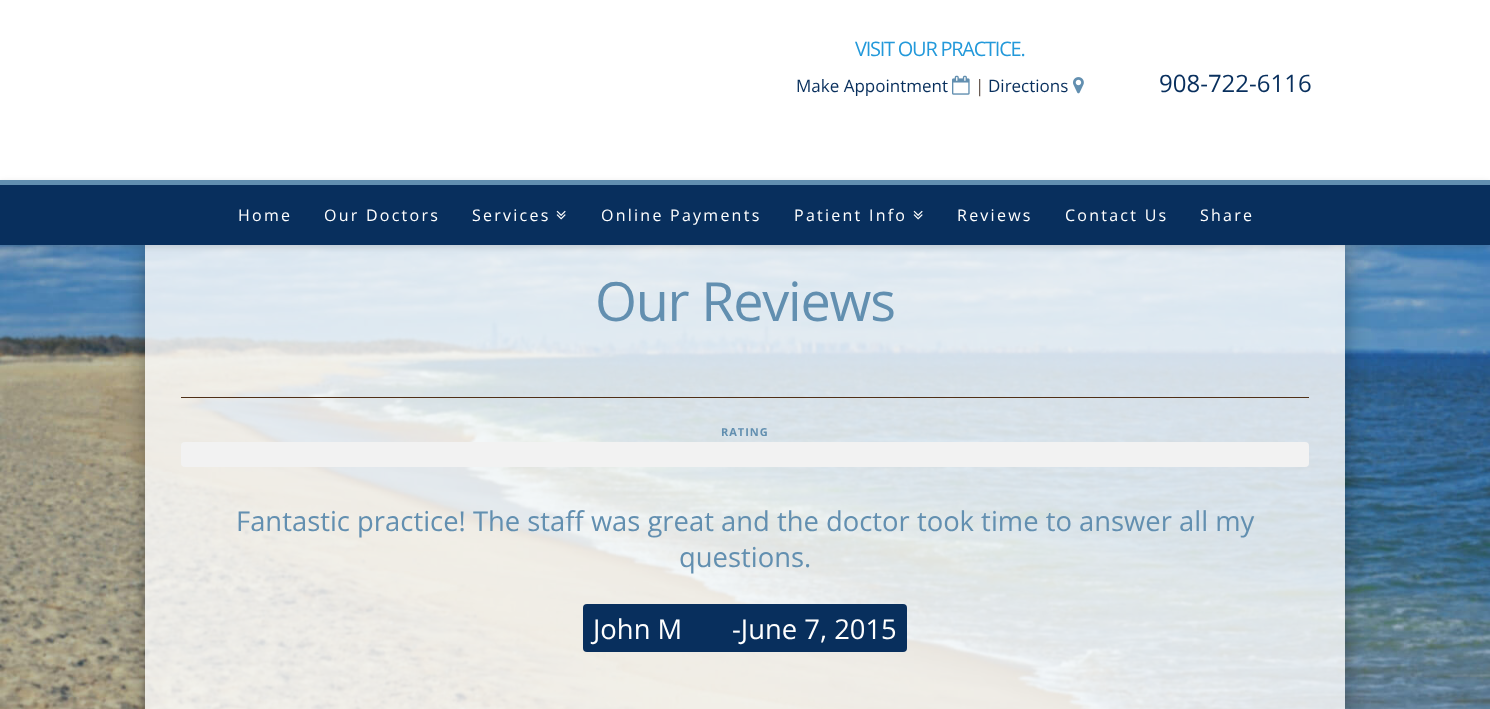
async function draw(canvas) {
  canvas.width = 1490;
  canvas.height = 709;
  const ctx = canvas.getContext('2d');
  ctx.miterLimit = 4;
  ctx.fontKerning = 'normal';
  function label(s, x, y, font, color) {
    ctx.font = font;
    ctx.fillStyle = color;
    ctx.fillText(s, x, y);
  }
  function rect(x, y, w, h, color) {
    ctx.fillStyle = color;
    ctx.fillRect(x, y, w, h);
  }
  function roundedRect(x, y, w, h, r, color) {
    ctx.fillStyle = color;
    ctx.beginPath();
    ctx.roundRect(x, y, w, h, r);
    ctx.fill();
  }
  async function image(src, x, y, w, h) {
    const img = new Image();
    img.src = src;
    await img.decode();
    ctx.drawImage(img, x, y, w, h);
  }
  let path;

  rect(0, 0, 1490, 709, '#fff');
  ctx.letterSpacing = '-1.25px';
  label('VISIT OUR PRACTICE.', 855, 56, '20px Open Sans', '#2399da');
  ctx.letterSpacing = '0px';
  label('Make Appointment', 796, 92, '17px Open Sans', '#082f5d');
  await image('assets/img1.png', 952, 75, 18, 20);
  label('|', 975, 92, '17px Open Sans', '#5e4f47');
  label('Directions', 988, 92, '17px Open Sans', '#082f5d');
  await image('assets/img2.png', 1073, 77, 11, 17);
  label('908-722-6116', 1159, 92, '24px Open Sans', '#082f5d');
  await image('assets/img4.png', 0, 245, 1490, 464);
  ctx.save();
  path = new Path2D('M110 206H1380V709H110ZM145 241H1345V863H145Z');
  ctx.clip(path, 'evenodd');
  ctx.fillStyle = '#00000080';
  ctx.filter = 'blur(13px)';
  ctx.beginPath();
  ctx.rect(150, 246, 1190, 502);
  ctx.fill();
  ctx.filter = 'none';
  ctx.restore();
  rect(145, 245, 1200, 464, '#ffffffcc');
  ctx.fillStyle = '#00000021';
  ctx.filter = 'blur(3px)';
  ctx.beginPath();
  ctx.rect(0, 182, 1490, 65);
  ctx.fill();
  ctx.filter = 'none';
  rect(0, 185, 1490, 60, '#082f5d');
  rect(0, 180, 1490, 5, '#628fb0');
  ctx.letterSpacing = '2.25px';
  label('Home', 238, 221, '16px Open Sans', '#fff');
  label('Our Doctors', 324, 221, '16px Open Sans', '#fff');
  label('Services', 472, 221, '16px Open Sans', '#fff');
  await image('assets/img3.png', 556, 210, 10, 10);
  label('Online Payments', 601, 221, '16px Open Sans', '#fff');
  label('Patient Info', 794, 221, '16px Open Sans', '#fff');
  await image('assets/img3.png', 913, 210, 10, 10);
  label('Reviews', 957, 221, '16px Open Sans', '#fff');
  label('Contact Us', 1065, 221, '16px Open Sans', '#fff');
  label('Share', 1200, 221, '16px Open Sans', '#fff');
  ctx.letterSpacing = '-1.25px';
  label('Our Reviews', 595, 321, '54px Open Sans', '#628fb0');
  rect(181, 397, 1128, 1, '#4f2f16');
  ctx.letterSpacing = '1px';
  label('RATING', 721, 436, 'bold 11px Open Sans', '#628fb0');
  roundedRect(181, 442, 1128, 25, 4, '#f2f2f2');
  ctx.letterSpacing = '0px';
  label('Fantastic practice! The staff was great and the doctor took time to answer all my', 236, 531, '27.4px Open Sans', '#628fb0');
  label('questions.', 679, 567, '27.4px Open Sans', '#628fb0');
  ctx.fillStyle = '#082f5d';
  ctx.beginPath();
  ctx.roundRect(583, 604, 99, 48, [4, 0, 0, 4]);
  ctx.fill();
  label('John M', 593, 639, '27.4px Open Sans', '#fff');
  rect(682, 604, 43, 48, '#082f5d');
  ctx.beginPath();
  ctx.roundRect(725, 604, 182, 48, [0, 4, 4, 0]);
  ctx.fill();
  label('-June 7, 2015', 732, 639, '27.4px Open Sans', '#fff');
}

draw(document.querySelector('canvas'));
